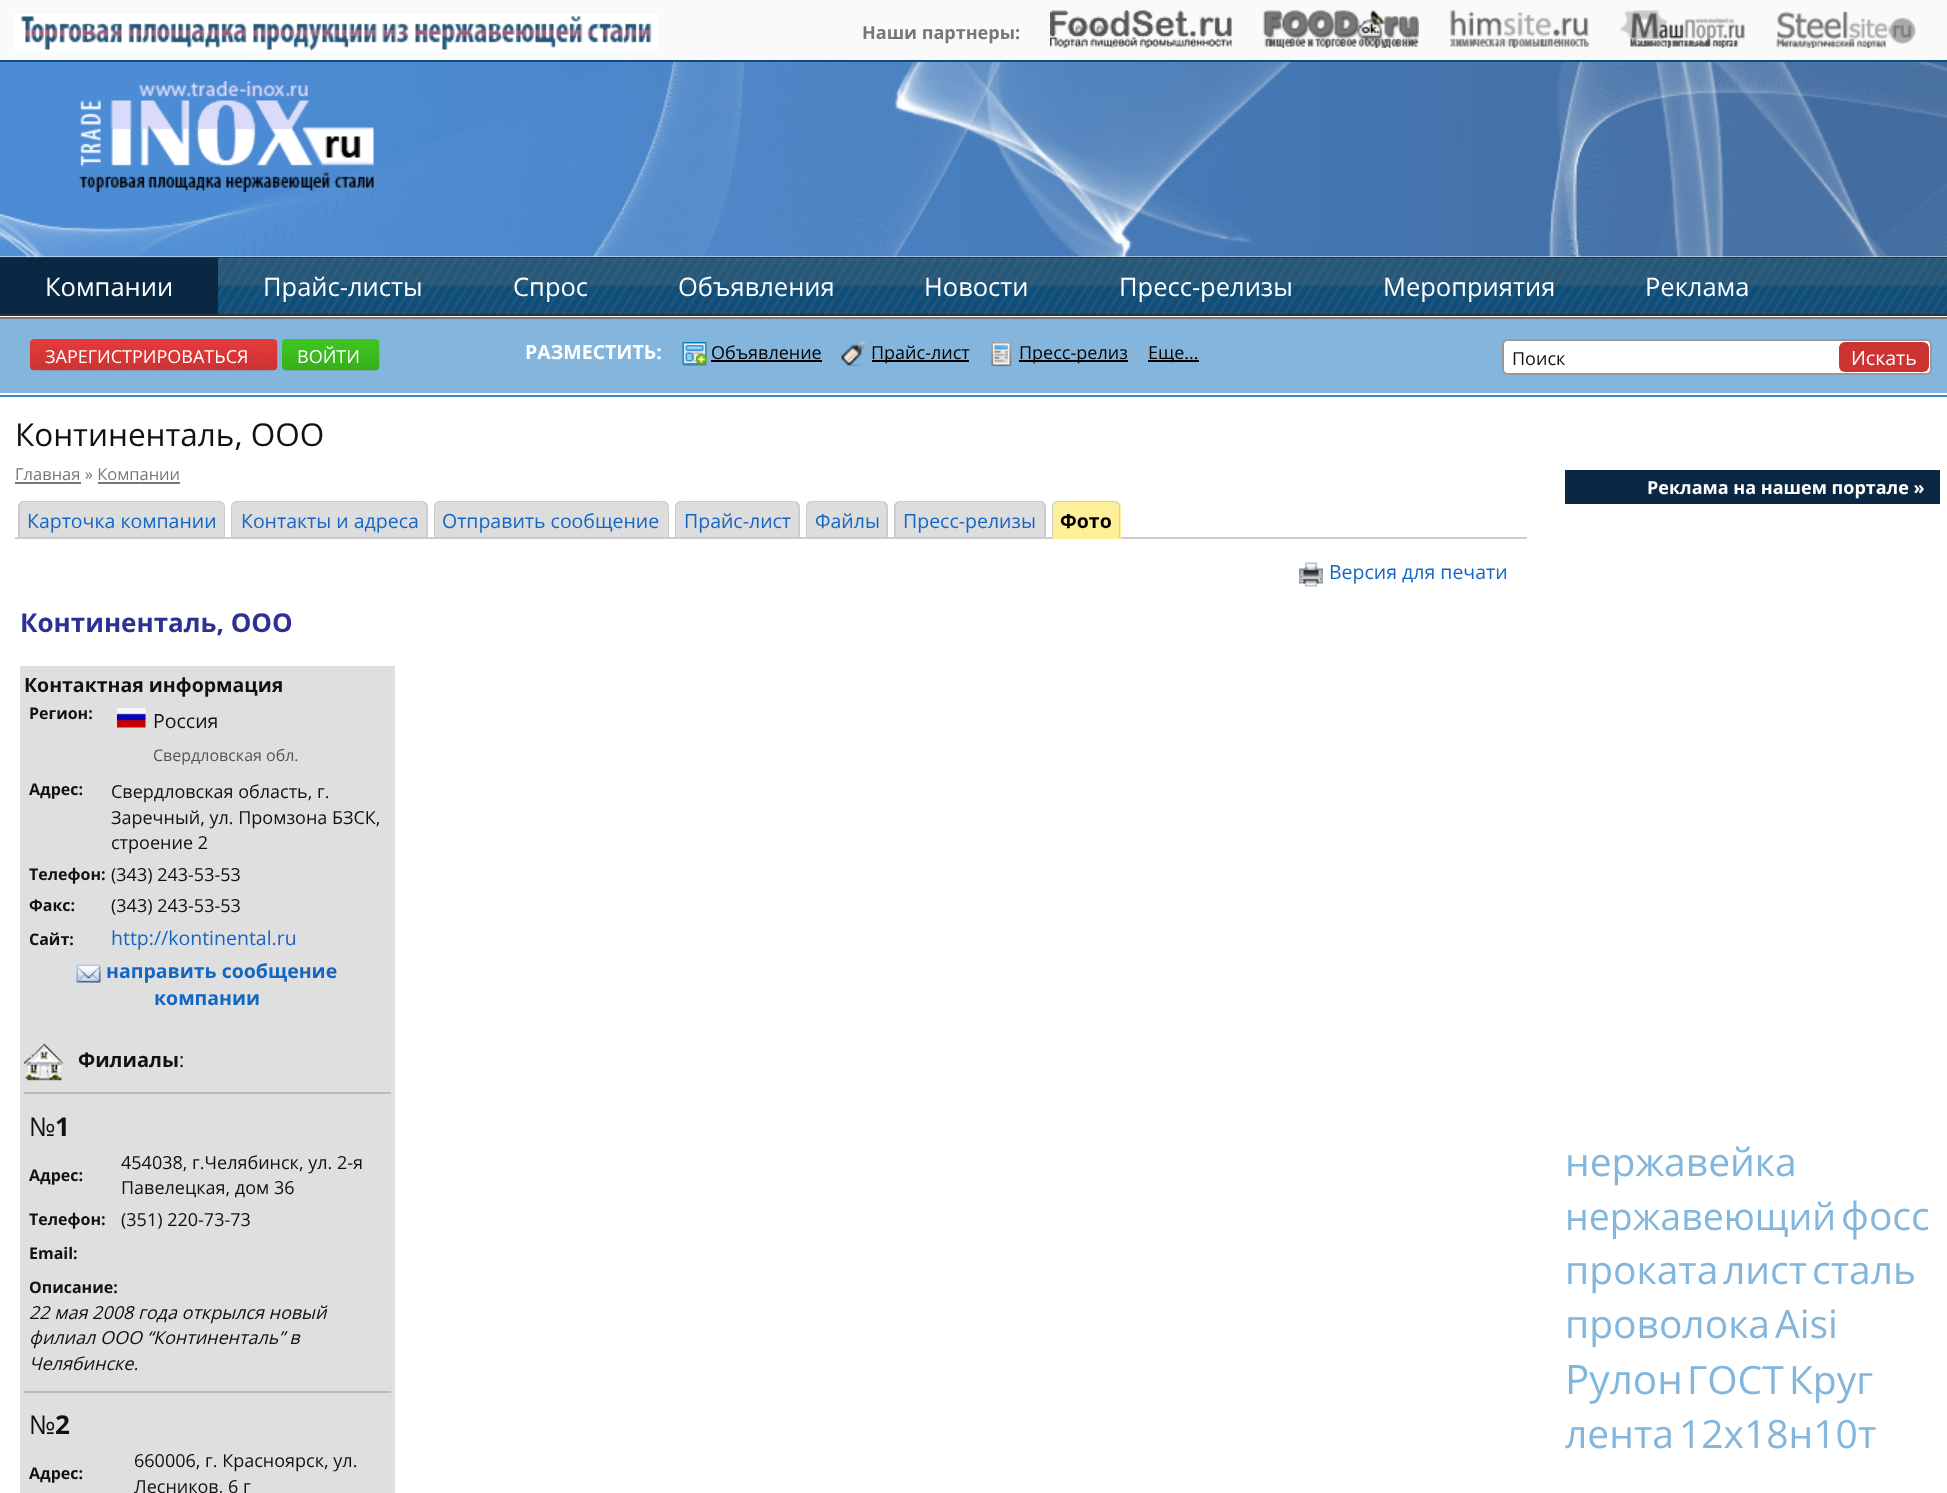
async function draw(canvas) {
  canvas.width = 1947;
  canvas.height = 1493;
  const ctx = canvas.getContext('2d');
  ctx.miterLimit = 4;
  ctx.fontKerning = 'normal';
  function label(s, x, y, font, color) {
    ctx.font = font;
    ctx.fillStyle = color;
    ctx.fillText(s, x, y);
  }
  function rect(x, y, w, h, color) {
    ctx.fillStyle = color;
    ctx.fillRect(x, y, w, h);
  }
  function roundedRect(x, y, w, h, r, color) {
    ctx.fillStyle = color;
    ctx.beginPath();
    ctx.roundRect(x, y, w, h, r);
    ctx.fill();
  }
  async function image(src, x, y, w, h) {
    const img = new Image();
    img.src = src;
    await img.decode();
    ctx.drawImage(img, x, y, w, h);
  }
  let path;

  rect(0, 0, 1947, 1493, '#fff');
  rect(0, 0, 1947, 60, '#fafafa');
  await image('assets/img1.png', 15, 14, 643, 37);
  label('Наши партнеры:', 862, 39, 'bold 18px Open Sans', '#777');
  await image('assets/img2.png', 1050, 10, 182, 38);
  await image('assets/img3.png', 1262, 10, 157, 38);
  await image('assets/img4.png', 1450, 10, 140, 38);
  await image('assets/img5.png', 1620, 10, 125, 38);
  await image('assets/img6.png', 1775, 11, 141, 37);
  await image('assets/img7.png', 0, 62, 1947, 195);
  rect(0, 60, 1947, 2, '#0d4d78');
  rect(0, 257, 1947, 1, '#333');
  await image('assets/img8.png', 79, 81, 295, 111);
  await image('assets/img9.png', 218, 258, 1729, 56);
  rect(0, 314, 1947, 2, '#333');
  rect(0, 258, 218, 56, '#0a2743');
  label('Компании', 45, 296, '25.5px Open Sans', '#fff');
  label('Прайс-листы', 263, 296, '25.5px Open Sans', '#fff');
  label('Спрос', 513, 296, '25.5px Open Sans', '#fff');
  label('Объявления', 678, 296, '25.5px Open Sans', '#fff');
  label('Новости', 924, 296, '25.5px Open Sans', '#fff');
  label('Пресс-релизы', 1119, 296, '25.5px Open Sans', '#fff');
  label('Мероприятия', 1383, 296, '25.5px Open Sans', '#fff');
  label('Реклама', 1645, 296, '25.5px Open Sans', '#fff');
  rect(0, 319, 1947, 74, '#84b6dd');
  rect(0, 317, 1947, 2, '#777');
  await image('assets/img10.png', 30, 339, 248, 32);
  label('ЗАРЕГИСТРИРОВАТЬСЯ', 45, 363, '18px Open Sans', '#fff');
  await image('assets/img11.png', 282, 339, 98, 32);
  label('ВОЙТИ', 297, 363, '18px Open Sans', '#fff');
  label('РАЗМЕСТИТЬ:', 525, 359, 'bold 19.5px Open Sans', '#fff');
  await image('assets/img12.png', 682, 342, 25, 24);
  label('Объявление', 711, 359, '18px Open Sans', '#000');
  rect(711, 360, 111, 2, '#000');
  await image('assets/img13.png', 841, 342, 25, 24);
  rect(872, 360, 97, 2, '#000');
  label('Прайс-лист', 871, 359, '18px Open Sans', '#000');
  await image('assets/img14.png', 991, 342, 21, 24);
  rect(1019, 360, 109, 2, '#000');
  label('Пресс-релиз', 1019, 359, '18px Open Sans', '#000');
  rect(1148, 360, 51, 2, '#000');
  label('Еще...', 1148, 359, '18px Open Sans', '#000');
  ctx.fillStyle = '#fff';
  ctx.beginPath();
  ctx.roundRect(1503, 340, 428, 34, 5);
  ctx.fill();
  ctx.strokeStyle = '#999';
  ctx.lineWidth = 2;
  ctx.stroke();
  label('Поиск', 1512, 365, '18px Open Sans', '#111');
  roundedRect(1839, 342, 90, 30, 6, '#c33');
  label('Искать', 1851, 365, '19.5px Open Sans', '#fff');
  rect(0, 395, 1947, 2, '#3f8ab8');
  label('Континенталь, ООО', 15, 446, '31.5px Open Sans', '#111');
  label('Главная » Компании', 15, 480, '16.5px Open Sans', '#777');
  rect(15, 482, 66, 2, '#777');
  rect(98, 482, 82, 2, '#777');
  rect(15, 537, 1512, 2, '#ccc');
  ctx.fillStyle = '#ddd';
  ctx.beginPath();
  ctx.roundRect(18, 501, 207, 36, [6, 6, 0, 0]);
  ctx.fill();
  ctx.fillStyle = '#ccc';
  path = new Path2D('M24 501H219C222 501 225 504 225 507V537H18V507C18 504 21 501 24 501ZM24 502H219C221 502 224 505 224 507V537H20V507C20 505 22 502 24 502Z');
  ctx.fill(path, 'evenodd');
  label('Карточка компании', 27, 528, '19.5px Open Sans', '#1466c4');
  ctx.fillStyle = '#ddd';
  ctx.beginPath();
  ctx.roundRect(231, 501, 197, 36, [6, 6, 0, 0]);
  ctx.fill();
  ctx.fillStyle = '#ccc';
  path = new Path2D('M237 501H422C425 501 428 504 428 507V537H231V507C231 504 234 501 237 501ZM237 502H422C424 502 426 505 426 507V537H232V507C232 505 235 502 237 502Z');
  ctx.fill(path, 'evenodd');
  label('Контакты и адреса', 241, 528, '19.5px Open Sans', '#1466c4');
  ctx.fillStyle = '#ddd';
  ctx.beginPath();
  ctx.roundRect(434, 501, 235, 36, [6, 6, 0, 0]);
  ctx.fill();
  ctx.fillStyle = '#ccc';
  path = new Path2D('M440 501H663C666 501 669 504 669 507V537H434V507C434 504 436 501 440 501ZM440 502H663C665 502 668 505 668 507V537H435V507C435 505 437 502 440 502Z');
  ctx.fill(path, 'evenodd');
  label('Отправить сообщение', 442, 528, '19.5px Open Sans', '#1466c4');
  ctx.fillStyle = '#ddd';
  ctx.beginPath();
  ctx.roundRect(675, 501, 125, 36, [6, 6, 0, 0]);
  ctx.fill();
  ctx.fillStyle = '#ccc';
  path = new Path2D('M681 501H794C797 501 800 504 800 507V537H675V507C675 504 678 501 681 501ZM681 502H794C796 502 798 505 798 507V537H676V507C676 505 679 502 681 502Z');
  ctx.fill(path, 'evenodd');
  label('Прайс-лист', 684, 528, '19.5px Open Sans', '#1466c4');
  ctx.fillStyle = '#ddd';
  ctx.beginPath();
  ctx.roundRect(806, 501, 82, 36, [6, 6, 0, 0]);
  ctx.fill();
  ctx.fillStyle = '#ccc';
  path = new Path2D('M812 501H882C885 501 888 504 888 507V537H806V507C806 504 808 501 812 501ZM812 502H882C884 502 886 505 886 507V537H807V507C807 505 809 502 812 502Z');
  ctx.fill(path, 'evenodd');
  label('Файлы', 815, 528, '19.5px Open Sans', '#1466c4');
  ctx.fillStyle = '#ddd';
  ctx.beginPath();
  ctx.roundRect(894, 501, 152, 36, [6, 6, 0, 0]);
  ctx.fill();
  ctx.fillStyle = '#ccc';
  path = new Path2D('M900 501H1040C1043 501 1046 504 1046 507V537H894V507C894 504 897 501 900 501ZM900 502H1040C1042 502 1044 505 1044 507V537H896V507C896 505 898 502 900 502Z');
  ctx.fill(path, 'evenodd');
  label('Пресс-релизы', 903, 528, '19.5px Open Sans', '#1466c4');
  ctx.fillStyle = '#fef098';
  ctx.beginPath();
  ctx.roundRect(1052, 501, 69, 38, [6, 6, 0, 0]);
  ctx.fill();
  ctx.fillStyle = '#ccc';
  path = new Path2D('M1058 501H1114C1118 501 1120 504 1120 507V538H1052V507C1052 504 1054 501 1058 501ZM1058 502H1114C1117 502 1119 505 1119 507V538H1053V507C1053 505 1055 502 1058 502Z');
  ctx.fill(path, 'evenodd');
  label('Фото', 1060, 528, 'bold 19.5px Open Sans', '#000');
  await image('assets/img15.png', 1299, 562, 24, 25);
  label('Версия для печати', 1329, 579, '19.5px Open Sans', '#1466c4');
  label('Континенталь, ООО', 20, 632, 'bold 26px Open Sans', '#2e3193');
  rect(20, 666, 375, 827, '#dfdfdf');
  label('Контактная информация', 24, 692, 'bold 19.5px Open Sans', '#111');
  label('Регион:', 29, 719, 'bold 16px Open Sans', '#111');
  await image('assets/img16.png', 117, 708, 29, 20);
  label('Россия', 153, 728, '19.5px Open Sans', '#111');
  label('Свердловская обл.', 153, 761, '16px Open Sans', '#555');
  label('Адрес:', 29, 795, 'bold 16px Open Sans', '#111');
  label('Свердловская область, г.', 111, 798, '18px Open Sans', '#111');
  label('Заречный, ул. Промзона БЗСК,', 111, 824, '18px Open Sans', '#111');
  label('строение 2', 111, 849, '18px Open Sans', '#111');
  label('Телефон:', 29, 880, 'bold 16px Open Sans', '#111');
  label('(343) 243-53-53', 111, 881, '18px Open Sans', '#111');
  label('Факс:', 29, 911, 'bold 16px Open Sans', '#111');
  label('(343) 243-53-53', 111, 912, '18px Open Sans', '#111');
  label('Сайт:', 29, 945, 'bold 16px Open Sans', '#111');
  label('http://kontinental.ru', 111, 945, '19.5px Open Sans', '#1466c4');
  await image('assets/img17.png', 76, 964, 25, 19);
  label('направить сообщение', 106, 978, 'bold 19.5px Open Sans', '#1466c4');
  label('компании', 154, 1005, 'bold 19.5px Open Sans', '#1466c4');
  await image('assets/img18.png', 24, 1043, 39, 38);
  label('Филиалы', 78, 1067, 'bold 20px Open Sans', '#111');
  label(':', 179, 1067, '20px Open Sans', '#111');
  rect(24, 1092, 367, 2, '#bbb');
  label('№', 29, 1136, '26px Open Sans', '#111');
  label('1', 55, 1136, 'bold 26px Open Sans', '#111');
  label('Адрес:', 29, 1181, 'bold 16px Open Sans', '#111');
  label('454038, г.Челябинск, ул. 2-я', 121, 1169, '18px Open Sans', '#111');
  label('Павелецкая, дом 36', 121, 1194, '18px Open Sans', '#111');
  label('Телефон:', 29, 1225, 'bold 16px Open Sans', '#111');
  label('(351) 220-73-73', 121, 1226, '18px Open Sans', '#111');
  label('Email:', 29, 1259, 'bold 16px Open Sans', '#111');
  label('Описание:', 29, 1293, 'bold 16px Open Sans', '#111');
  label('22 мая 2008 года открылся новый', 29, 1319, 'italic 18px Open Sans', '#111');
  label('филиал ООО “Континенталь” в', 29, 1344, 'italic 18px Open Sans', '#111');
  label('Челябинске.', 29, 1370, 'italic 18px Open Sans', '#111');
  rect(24, 1391, 367, 2, '#bbb');
  label('№', 29, 1434, '26px Open Sans', '#111');
  label('2', 55, 1434, 'bold 26px Open Sans', '#111');
  label('Адрес:', 29, 1479, 'bold 16px Open Sans', '#111');
  label('660006, г. Красноярск, ул.', 134, 1467, '18px Open Sans', '#111');
  label('Лесников, 6 г', 134, 1493, '18px Open Sans', '#111');
  rect(1565, 470, 375, 34, '#0a2743');
  label('Реклама на нашем портале »', 1647, 494, 'bold 18px Open Sans', '#fff');
  label('нержавейка', 1565, 1176, '39px Open Sans', '#82b6dd');
  label('нержавеющий', 1565, 1230, '37.5px Open Sans', '#82b6dd');
  label('фосс', 1841, 1230, '39px Open Sans', '#82b6dd');
  label('проката', 1565, 1284, '39px Open Sans', '#82b6dd');
  label('лист', 1723, 1284, '39px Open Sans', '#82b6dd');
  label('сталь', 1812, 1284, '39px Open Sans', '#82b6dd');
  label('проволока', 1565, 1338, '39px Open Sans', '#82b6dd');
  label('Aisi', 1775, 1338, '39px Open Sans', '#82b6dd');
  label('Рулон', 1565, 1394, '40.5px Open Sans', '#82b6dd');
  label('ГОСТ', 1687, 1394, '39px Open Sans', '#82b6dd');
  label('Круг', 1789, 1394, '39px Open Sans', '#82b6dd');
  label('лента', 1565, 1448, '39px Open Sans', '#82b6dd');
  label('12х18н10т', 1679, 1448, '39px Open Sans', '#82b6dd');
}

draw(document.querySelector('canvas'));
